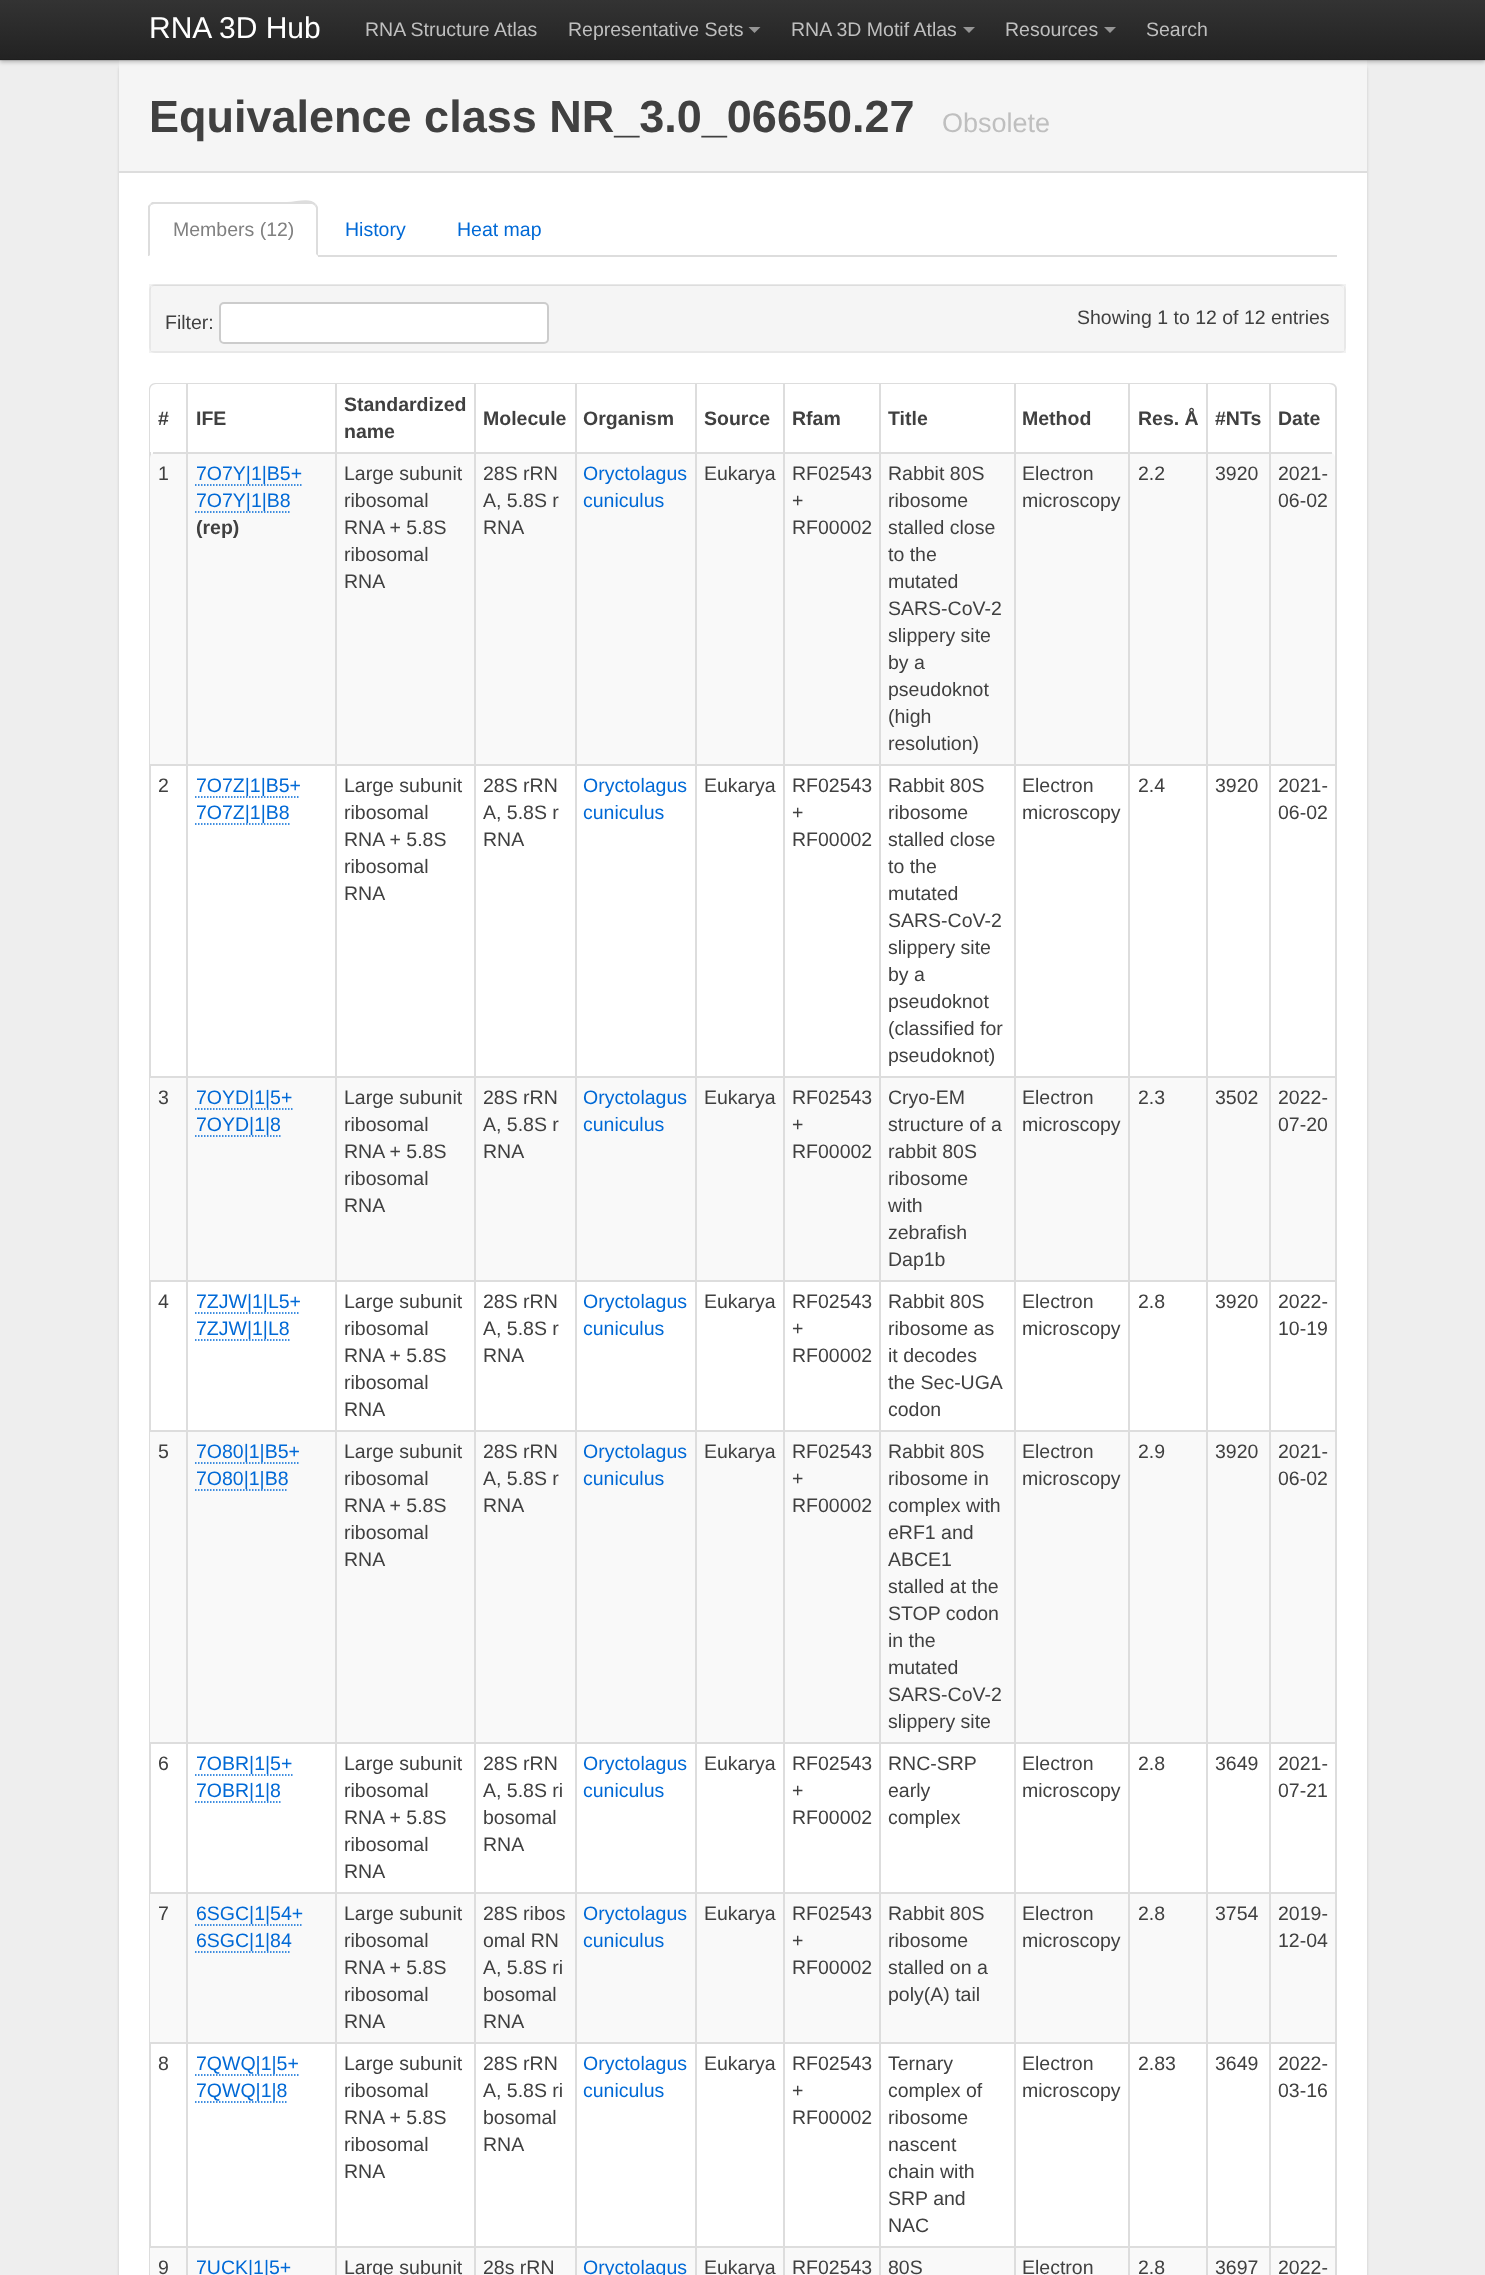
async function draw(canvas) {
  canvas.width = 1485;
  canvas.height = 2275;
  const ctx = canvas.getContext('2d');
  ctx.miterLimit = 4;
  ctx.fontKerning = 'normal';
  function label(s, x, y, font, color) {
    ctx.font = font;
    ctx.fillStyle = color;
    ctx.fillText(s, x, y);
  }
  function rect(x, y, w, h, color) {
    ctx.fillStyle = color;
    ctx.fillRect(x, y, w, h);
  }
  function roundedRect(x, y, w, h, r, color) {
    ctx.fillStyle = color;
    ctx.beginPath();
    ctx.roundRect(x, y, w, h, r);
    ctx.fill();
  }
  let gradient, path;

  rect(0, 0, 1485, 2275, '#eee');
  ctx.fillStyle = '#00000026';
  ctx.filter = 'blur(1.5px)';
  ctx.beginPath();
  ctx.roundRect(119, 62, 1248, 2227, 9);
  ctx.fill();
  ctx.filter = 'none';
  rect(119, 60, 1248, 111, '#f5f5f5');
  ctx.fillStyle = '#00000040';
  ctx.filter = 'blur(2px)';
  ctx.beginPath();
  ctx.rect(0, 2, 1485, 60);
  ctx.fill();
  ctx.filter = 'none';
  gradient = ctx.createLinearGradient(743, 0, 743, 60);
  gradient.addColorStop(0, '#333');
  gradient.addColorStop(1, '#222');
  ctx.fillStyle = gradient;
  ctx.fillRect(0, 0, 1485, 60);
  rect(0, 59, 1485, 2, '#0000001a');
  label('RNA 3D Hub', 149, 38, '30px Liberation Sans', '#fff');
  label('RNA Structure Atlas', 365, 36, '19.5px Liberation Sans', '#bfbfbf');
  label('Representative Sets', 568, 36, '19.5px Liberation Sans', '#bfbfbf');
  ctx.fillStyle = '#959595';
  path = new Path2D('M748.5 27H760.5L754.5 33Z');
  ctx.fill(path);
  label('RNA 3D Motif Atlas', 791, 36, '19.5px Liberation Sans', '#bfbfbf');
  ctx.fillStyle = '#959595';
  path = new Path2D('M963 27H975L969 33Z');
  ctx.fill(path);
  label('Resources', 1005, 36, '19.5px Liberation Sans', '#bfbfbf');
  ctx.fillStyle = '#959595';
  path = new Path2D('M1104 27H1116L1110 33Z');
  ctx.fill(path);
  label('Search', 1146, 36, '19.5px Liberation Sans', '#bfbfbf');
  rect(119, 173, 1248, 2102, '#fff');
  rect(119, 171, 1248, 2, '#ddd');
  label('Equivalence class NR_3.0_06650.27', 149, 132, 'bold 45px Liberation Sans', '#404040');
  label('Obsolete', 942, 132, '27px Liberation Sans', '#bfbfbf');
  rect(318, 255, 1019, 2, '#ddd');
  path = new Path2D('M154 204L151 205L150 204L152 202H287C297 202 310 197 316 204L315 206C314 205 313 204 312 204Z');
  ctx.fill(path);
  path = new Path2D('M318 256V208C318 207 317 205 316 204L315 206L316 208V254Z');
  ctx.fill(path);
  path = new Path2D('M148 206L150 204L151 205L150 207V255L149 256H148Z');
  ctx.fill(path);
  label('Members (12)', 173, 236, '19.5px Liberation Sans', '#808080');
  label('History', 345, 236, '19.5px Liberation Sans', '#0069d6');
  label('Heat map', 457, 236, '19.5px Liberation Sans', '#0069d6');
  roundedRect(149, 284, 1197, 69, 6, '#f5f5f5');
  ctx.fillStyle = '#e9e9e9';
  path = new Path2D('M154 286H1340C1342 286 1344 289 1344 291C1344 288 1342 285 1339 285H155C152 285 150 288 150 291C150 289 152 286 154 286Z');
  ctx.fill(path);
  ctx.strokeStyle = '#0000000d';
  ctx.lineWidth = 2;
  ctx.strokeRect(150, 285, 1195, 67);
  label('Filter:', 165, 329, '19.5px Liberation Sans', '#404040');
  ctx.fillStyle = '#fff';
  ctx.beginPath();
  ctx.roundRect(220, 303, 328, 40, 4);
  ctx.fill();
  ctx.strokeStyle = '#ccc';
  ctx.stroke();
  label('Showing 1 to 12 of 12 entries', 1077, 324, '19.5px Liberation Sans', '#404040');
  ctx.beginPath();
  ctx.roundRect(150, 384, 1186, 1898, 5);
  ctx.strokeStyle = '#ddd';
  ctx.stroke();
  ctx.fillStyle = '#fff';
  ctx.beginPath();
  ctx.roundRect(150, 384, 36, 68, [6, 0, 0, 0]);
  ctx.fill();
  label('#', 158, 425, 'bold 19.5px Liberation Sans', '#404040');
  rect(188, 384, 147, 1, '#fff');
  rect(186, 384, 2, 68, '#ddd');
  label('IFE', 196, 425, 'bold 19.5px Liberation Sans', '#404040');
  rect(337, 384, 137, 1, '#fff');
  rect(335, 384, 2, 68, '#ddd');
  label('Standardized', 344, 411, 'bold 19.5px Liberation Sans', '#404040');
  label('name', 344, 438, 'bold 19.5px Liberation Sans', '#404040');
  rect(476, 384, 99, 1, '#fff');
  rect(474, 384, 2, 68, '#ddd');
  label('Molecule', 483, 425, 'bold 19.5px Liberation Sans', '#404040');
  rect(577, 384, 118, 1, '#fff');
  rect(575, 384, 2, 68, '#ddd');
  label('Organism', 583, 425, 'bold 19.5px Liberation Sans', '#404040');
  rect(697, 384, 86, 1, '#fff');
  rect(695, 384, 2, 68, '#ddd');
  label('Source', 704, 425, 'bold 19.5px Liberation Sans', '#404040');
  rect(785, 384, 94, 1, '#fff');
  rect(783, 384, 2, 68, '#ddd');
  label('Rfam', 792, 425, 'bold 19.5px Liberation Sans', '#404040');
  rect(881, 384, 133, 1, '#fff');
  rect(879, 384, 2, 68, '#ddd');
  label('Title', 888, 425, 'bold 19.5px Liberation Sans', '#404040');
  rect(1016, 384, 112, 1, '#fff');
  rect(1014, 384, 2, 68, '#ddd');
  label('Method', 1022, 425, 'bold 19.5px Liberation Sans', '#404040');
  rect(1130, 384, 76, 1, '#fff');
  rect(1128, 384, 2, 68, '#ddd');
  label('Res. Å', 1138, 425, 'bold 19.5px Liberation Sans', '#404040');
  rect(1208, 384, 61, 1, '#fff');
  rect(1206, 384, 2, 68, '#ddd');
  label('#NTs', 1215, 425, 'bold 19.5px Liberation Sans', '#404040');
  ctx.fillStyle = '#fff';
  ctx.beginPath();
  ctx.roundRect(1269, 384, 66, 68, [0, 6, 0, 0]);
  ctx.fill();
  rect(1269, 384, 2, 68, '#ddd');
  label('Date', 1278, 425, 'bold 19.5px Liberation Sans', '#404040');
  ctx.fillStyle = '#f9f9f9';
  ctx.beginPath();
  ctx.roundRect(150, 452, 36, 312, [6, 0, 0, 0]);
  ctx.fill();
  rect(153, 452, 1116, 2, '#ddd');
  label('1', 158, 480, '19.5px Liberation Sans', '#404040');
  rect(188, 454, 147, 310, '#f9f9f9');
  rect(186, 452, 2, 312, '#ddd');
  path = new Path2D('M195 485H301.5');
  ctx.strokeStyle = '#0069d6';
  ctx.lineWidth = 1.5;
  ctx.setLineDash([1.5, 1.5]);
  ctx.stroke(path);
  label('7O7Y|1|B5+', 196, 480, '19.5px Liberation Sans', '#0069d6');
  path = new Path2D('M195 512H291');
  ctx.stroke(path);
  label('7O7Y|1|B8', 196, 507, '19.5px Liberation Sans', '#0069d6');
  label('(rep)', 196, 534, 'bold 19.5px Liberation Sans', '#404040');
  rect(337, 454, 137, 310, '#f9f9f9');
  rect(335, 452, 2, 312, '#ddd');
  label('Large subunit', 344, 480, '19.5px Liberation Sans', '#404040');
  label('ribosomal', 344, 507, '19.5px Liberation Sans', '#404040');
  label('RNA + 5.8S', 344, 534, '19.5px Liberation Sans', '#404040');
  label('ribosomal', 344, 561, '19.5px Liberation Sans', '#404040');
  label('RNA', 344, 588, '19.5px Liberation Sans', '#404040');
  rect(476, 454, 99, 310, '#f9f9f9');
  rect(474, 452, 2, 312, '#ddd');
  label('28S rRN', 483, 480, '19.5px Liberation Sans', '#404040');
  label('A, 5.8S r', 483, 507, '19.5px Liberation Sans', '#404040');
  label('RNA', 483, 534, '19.5px Liberation Sans', '#404040');
  rect(577, 454, 118, 310, '#f9f9f9');
  rect(575, 452, 2, 312, '#ddd');
  label('Oryctolagus', 583, 480, '19.5px Liberation Sans', '#0069d6');
  label('cuniculus', 583, 507, '19.5px Liberation Sans', '#0069d6');
  rect(697, 454, 86, 310, '#f9f9f9');
  rect(695, 452, 2, 312, '#ddd');
  label('Eukarya', 704, 480, '19.5px Liberation Sans', '#404040');
  rect(785, 454, 94, 310, '#f9f9f9');
  rect(783, 452, 2, 312, '#ddd');
  label('RF02543', 792, 480, '19.5px Liberation Sans', '#404040');
  label('+', 792, 507, '19.5px Liberation Sans', '#404040');
  label('RF00002', 792, 534, '19.5px Liberation Sans', '#404040');
  rect(881, 454, 133, 310, '#f9f9f9');
  rect(879, 452, 2, 312, '#ddd');
  label('Rabbit 80S', 888, 480, '19.5px Liberation Sans', '#404040');
  label('ribosome', 888, 507, '19.5px Liberation Sans', '#404040');
  label('stalled close', 888, 534, '19.5px Liberation Sans', '#404040');
  label('to the', 888, 561, '19.5px Liberation Sans', '#404040');
  label('mutated', 888, 588, '19.5px Liberation Sans', '#404040');
  label('SARS-CoV-2', 888, 615, '19.5px Liberation Sans', '#404040');
  label('slippery site', 888, 642, '19.5px Liberation Sans', '#404040');
  label('by a', 888, 669, '19.5px Liberation Sans', '#404040');
  label('pseudoknot', 888, 696, '19.5px Liberation Sans', '#404040');
  label('(high', 888, 723, '19.5px Liberation Sans', '#404040');
  label('resolution)', 888, 750, '19.5px Liberation Sans', '#404040');
  rect(1016, 454, 112, 310, '#f9f9f9');
  rect(1014, 452, 2, 312, '#ddd');
  label('Electron', 1022, 480, '19.5px Liberation Sans', '#404040');
  label('microscopy', 1022, 507, '19.5px Liberation Sans', '#404040');
  rect(1130, 454, 76, 310, '#f9f9f9');
  rect(1128, 452, 2, 312, '#ddd');
  label('2.2', 1138, 480, '19.5px Liberation Sans', '#404040');
  rect(1208, 454, 61, 310, '#f9f9f9');
  rect(1206, 452, 2, 312, '#ddd');
  label('3920', 1215, 480, '19.5px Liberation Sans', '#404040');
  ctx.fillStyle = '#f9f9f9';
  ctx.beginPath();
  ctx.roundRect(1269, 452, 66, 312, [0, 6, 0, 0]);
  ctx.fill();
  rect(1269, 452, 63, 2, '#ddd');
  rect(1269, 452, 2, 312, '#ddd');
  label('2021-', 1278, 480, '19.5px Liberation Sans', '#404040');
  label('06-02', 1278, 507, '19.5px Liberation Sans', '#404040');
  rect(150, 764, 1185, 2, '#ddd');
  label('2', 158, 792, '19.5px Liberation Sans', '#404040');
  rect(186, 764, 2, 312, '#ddd');
  path = new Path2D('M195 797H300');
  ctx.stroke(path);
  label('7O7Z|1|B5+', 196, 792, '19.5px Liberation Sans', '#0069d6');
  path = new Path2D('M195 824H289.5');
  ctx.stroke(path);
  label('7O7Z|1|B8', 196, 819, '19.5px Liberation Sans', '#0069d6');
  rect(335, 764, 2, 312, '#ddd');
  label('Large subunit', 344, 792, '19.5px Liberation Sans', '#404040');
  label('ribosomal', 344, 819, '19.5px Liberation Sans', '#404040');
  label('RNA + 5.8S', 344, 846, '19.5px Liberation Sans', '#404040');
  label('ribosomal', 344, 873, '19.5px Liberation Sans', '#404040');
  label('RNA', 344, 900, '19.5px Liberation Sans', '#404040');
  rect(474, 764, 2, 312, '#ddd');
  label('28S rRN', 483, 792, '19.5px Liberation Sans', '#404040');
  label('A, 5.8S r', 483, 819, '19.5px Liberation Sans', '#404040');
  label('RNA', 483, 846, '19.5px Liberation Sans', '#404040');
  rect(575, 764, 2, 312, '#ddd');
  label('Oryctolagus', 583, 792, '19.5px Liberation Sans', '#0069d6');
  label('cuniculus', 583, 819, '19.5px Liberation Sans', '#0069d6');
  rect(695, 764, 2, 312, '#ddd');
  label('Eukarya', 704, 792, '19.5px Liberation Sans', '#404040');
  rect(783, 764, 2, 312, '#ddd');
  label('RF02543', 792, 792, '19.5px Liberation Sans', '#404040');
  label('+', 792, 819, '19.5px Liberation Sans', '#404040');
  label('RF00002', 792, 846, '19.5px Liberation Sans', '#404040');
  rect(879, 764, 2, 312, '#ddd');
  label('Rabbit 80S', 888, 792, '19.5px Liberation Sans', '#404040');
  label('ribosome', 888, 819, '19.5px Liberation Sans', '#404040');
  label('stalled close', 888, 846, '19.5px Liberation Sans', '#404040');
  label('to the', 888, 873, '19.5px Liberation Sans', '#404040');
  label('mutated', 888, 900, '19.5px Liberation Sans', '#404040');
  label('SARS-CoV-2', 888, 927, '19.5px Liberation Sans', '#404040');
  label('slippery site', 888, 954, '19.5px Liberation Sans', '#404040');
  label('by a', 888, 981, '19.5px Liberation Sans', '#404040');
  label('pseudoknot', 888, 1008, '19.5px Liberation Sans', '#404040');
  label('(classified for', 888, 1035, '19.5px Liberation Sans', '#404040');
  label('pseudoknot)', 888, 1062, '19.5px Liberation Sans', '#404040');
  rect(1014, 764, 2, 312, '#ddd');
  label('Electron', 1022, 792, '19.5px Liberation Sans', '#404040');
  label('microscopy', 1022, 819, '19.5px Liberation Sans', '#404040');
  rect(1128, 764, 2, 312, '#ddd');
  label('2.4', 1138, 792, '19.5px Liberation Sans', '#404040');
  rect(1206, 764, 2, 312, '#ddd');
  label('3920', 1215, 792, '19.5px Liberation Sans', '#404040');
  rect(1269, 764, 2, 312, '#ddd');
  label('2021-', 1278, 792, '19.5px Liberation Sans', '#404040');
  label('06-02', 1278, 819, '19.5px Liberation Sans', '#404040');
  rect(150, 1078, 36, 202, '#f9f9f9');
  rect(150, 1076, 1185, 2, '#ddd');
  label('3', 158, 1104, '19.5px Liberation Sans', '#404040');
  rect(188, 1078, 147, 202, '#f9f9f9');
  rect(186, 1076, 2, 204, '#ddd');
  path = new Path2D('M195 1109H292.5');
  ctx.stroke(path);
  label('7OYD|1|5+', 196, 1104, '19.5px Liberation Sans', '#0069d6');
  path = new Path2D('M195 1136H280.5');
  ctx.stroke(path);
  label('7OYD|1|8', 196, 1131, '19.5px Liberation Sans', '#0069d6');
  rect(337, 1078, 137, 202, '#f9f9f9');
  rect(335, 1076, 2, 204, '#ddd');
  label('Large subunit', 344, 1104, '19.5px Liberation Sans', '#404040');
  label('ribosomal', 344, 1131, '19.5px Liberation Sans', '#404040');
  label('RNA + 5.8S', 344, 1158, '19.5px Liberation Sans', '#404040');
  label('ribosomal', 344, 1185, '19.5px Liberation Sans', '#404040');
  label('RNA', 344, 1212, '19.5px Liberation Sans', '#404040');
  rect(476, 1078, 99, 202, '#f9f9f9');
  rect(474, 1076, 2, 204, '#ddd');
  label('28S rRN', 483, 1104, '19.5px Liberation Sans', '#404040');
  label('A, 5.8S r', 483, 1131, '19.5px Liberation Sans', '#404040');
  label('RNA', 483, 1158, '19.5px Liberation Sans', '#404040');
  rect(577, 1078, 118, 202, '#f9f9f9');
  rect(575, 1076, 2, 204, '#ddd');
  label('Oryctolagus', 583, 1104, '19.5px Liberation Sans', '#0069d6');
  label('cuniculus', 583, 1131, '19.5px Liberation Sans', '#0069d6');
  rect(697, 1078, 86, 202, '#f9f9f9');
  rect(695, 1076, 2, 204, '#ddd');
  label('Eukarya', 704, 1104, '19.5px Liberation Sans', '#404040');
  rect(785, 1078, 94, 202, '#f9f9f9');
  rect(783, 1076, 2, 204, '#ddd');
  label('RF02543', 792, 1104, '19.5px Liberation Sans', '#404040');
  label('+', 792, 1131, '19.5px Liberation Sans', '#404040');
  label('RF00002', 792, 1158, '19.5px Liberation Sans', '#404040');
  rect(881, 1078, 133, 202, '#f9f9f9');
  rect(879, 1076, 2, 204, '#ddd');
  label('Cryo-EM', 888, 1104, '19.5px Liberation Sans', '#404040');
  label('structure of a', 888, 1131, '19.5px Liberation Sans', '#404040');
  label('rabbit 80S', 888, 1158, '19.5px Liberation Sans', '#404040');
  label('ribosome', 888, 1185, '19.5px Liberation Sans', '#404040');
  label('with', 888, 1212, '19.5px Liberation Sans', '#404040');
  label('zebrafish', 888, 1239, '19.5px Liberation Sans', '#404040');
  label('Dap1b', 888, 1266, '19.5px Liberation Sans', '#404040');
  rect(1016, 1078, 112, 202, '#f9f9f9');
  rect(1014, 1076, 2, 204, '#ddd');
  label('Electron', 1022, 1104, '19.5px Liberation Sans', '#404040');
  label('microscopy', 1022, 1131, '19.5px Liberation Sans', '#404040');
  rect(1130, 1078, 76, 202, '#f9f9f9');
  rect(1128, 1076, 2, 204, '#ddd');
  label('2.3', 1138, 1104, '19.5px Liberation Sans', '#404040');
  rect(1208, 1078, 61, 202, '#f9f9f9');
  rect(1206, 1076, 2, 204, '#ddd');
  label('3502', 1215, 1104, '19.5px Liberation Sans', '#404040');
  rect(1271, 1078, 64, 202, '#f9f9f9');
  rect(1269, 1076, 2, 204, '#ddd');
  label('2022-', 1278, 1104, '19.5px Liberation Sans', '#404040');
  label('07-20', 1278, 1131, '19.5px Liberation Sans', '#404040');
  rect(150, 1280, 1185, 2, '#ddd');
  label('4', 158, 1308, '19.5px Liberation Sans', '#404040');
  rect(186, 1280, 2, 150, '#ddd');
  path = new Path2D('M195 1313H300');
  ctx.stroke(path);
  label('7ZJW|1|L5+', 196, 1308, '19.5px Liberation Sans', '#0069d6');
  path = new Path2D('M195 1340H289.5');
  ctx.stroke(path);
  label('7ZJW|1|L8', 196, 1335, '19.5px Liberation Sans', '#0069d6');
  rect(335, 1280, 2, 150, '#ddd');
  label('Large subunit', 344, 1308, '19.5px Liberation Sans', '#404040');
  label('ribosomal', 344, 1335, '19.5px Liberation Sans', '#404040');
  label('RNA + 5.8S', 344, 1362, '19.5px Liberation Sans', '#404040');
  label('ribosomal', 344, 1389, '19.5px Liberation Sans', '#404040');
  label('RNA', 344, 1416, '19.5px Liberation Sans', '#404040');
  rect(474, 1280, 2, 150, '#ddd');
  label('28S rRN', 483, 1308, '19.5px Liberation Sans', '#404040');
  label('A, 5.8S r', 483, 1335, '19.5px Liberation Sans', '#404040');
  label('RNA', 483, 1362, '19.5px Liberation Sans', '#404040');
  rect(575, 1280, 2, 150, '#ddd');
  label('Oryctolagus', 583, 1308, '19.5px Liberation Sans', '#0069d6');
  label('cuniculus', 583, 1335, '19.5px Liberation Sans', '#0069d6');
  rect(695, 1280, 2, 150, '#ddd');
  label('Eukarya', 704, 1308, '19.5px Liberation Sans', '#404040');
  rect(783, 1280, 2, 150, '#ddd');
  label('RF02543', 792, 1308, '19.5px Liberation Sans', '#404040');
  label('+', 792, 1335, '19.5px Liberation Sans', '#404040');
  label('RF00002', 792, 1362, '19.5px Liberation Sans', '#404040');
  rect(879, 1280, 2, 150, '#ddd');
  label('Rabbit 80S', 888, 1308, '19.5px Liberation Sans', '#404040');
  label('ribosome as', 888, 1335, '19.5px Liberation Sans', '#404040');
  label('it decodes', 888, 1362, '19.5px Liberation Sans', '#404040');
  label('the Sec-UGA', 888, 1389, '19.5px Liberation Sans', '#404040');
  label('codon', 888, 1416, '19.5px Liberation Sans', '#404040');
  rect(1014, 1280, 2, 150, '#ddd');
  label('Electron', 1022, 1308, '19.5px Liberation Sans', '#404040');
  label('microscopy', 1022, 1335, '19.5px Liberation Sans', '#404040');
  rect(1128, 1280, 2, 150, '#ddd');
  label('2.8', 1138, 1308, '19.5px Liberation Sans', '#404040');
  rect(1206, 1280, 2, 150, '#ddd');
  label('3920', 1215, 1308, '19.5px Liberation Sans', '#404040');
  rect(1269, 1280, 2, 150, '#ddd');
  label('2022-', 1278, 1308, '19.5px Liberation Sans', '#404040');
  label('10-19', 1278, 1335, '19.5px Liberation Sans', '#404040');
  rect(150, 1432, 36, 310, '#f9f9f9');
  rect(150, 1430, 1185, 2, '#ddd');
  label('5', 158, 1458, '19.5px Liberation Sans', '#404040');
  rect(188, 1432, 147, 310, '#f9f9f9');
  rect(186, 1430, 2, 312, '#ddd');
  path = new Path2D('M195 1463H300');
  ctx.stroke(path);
  label('7O80|1|B5+', 196, 1458, '19.5px Liberation Sans', '#0069d6');
  path = new Path2D('M195 1490H288');
  ctx.stroke(path);
  label('7O80|1|B8', 196, 1485, '19.5px Liberation Sans', '#0069d6');
  rect(337, 1432, 137, 310, '#f9f9f9');
  rect(335, 1430, 2, 312, '#ddd');
  label('Large subunit', 344, 1458, '19.5px Liberation Sans', '#404040');
  label('ribosomal', 344, 1485, '19.5px Liberation Sans', '#404040');
  label('RNA + 5.8S', 344, 1512, '19.5px Liberation Sans', '#404040');
  label('ribosomal', 344, 1539, '19.5px Liberation Sans', '#404040');
  label('RNA', 344, 1566, '19.5px Liberation Sans', '#404040');
  rect(476, 1432, 99, 310, '#f9f9f9');
  rect(474, 1430, 2, 312, '#ddd');
  label('28S rRN', 483, 1458, '19.5px Liberation Sans', '#404040');
  label('A, 5.8S r', 483, 1485, '19.5px Liberation Sans', '#404040');
  label('RNA', 483, 1512, '19.5px Liberation Sans', '#404040');
  rect(577, 1432, 118, 310, '#f9f9f9');
  rect(575, 1430, 2, 312, '#ddd');
  label('Oryctolagus', 583, 1458, '19.5px Liberation Sans', '#0069d6');
  label('cuniculus', 583, 1485, '19.5px Liberation Sans', '#0069d6');
  rect(697, 1432, 86, 310, '#f9f9f9');
  rect(695, 1430, 2, 312, '#ddd');
  label('Eukarya', 704, 1458, '19.5px Liberation Sans', '#404040');
  rect(785, 1432, 94, 310, '#f9f9f9');
  rect(783, 1430, 2, 312, '#ddd');
  label('RF02543', 792, 1458, '19.5px Liberation Sans', '#404040');
  label('+', 792, 1485, '19.5px Liberation Sans', '#404040');
  label('RF00002', 792, 1512, '19.5px Liberation Sans', '#404040');
  rect(881, 1432, 133, 310, '#f9f9f9');
  rect(879, 1430, 2, 312, '#ddd');
  label('Rabbit 80S', 888, 1458, '19.5px Liberation Sans', '#404040');
  label('ribosome in', 888, 1485, '19.5px Liberation Sans', '#404040');
  label('complex with', 888, 1512, '19.5px Liberation Sans', '#404040');
  label('eRF1 and', 888, 1539, '19.5px Liberation Sans', '#404040');
  label('ABCE1', 888, 1566, '19.5px Liberation Sans', '#404040');
  label('stalled at the', 888, 1593, '19.5px Liberation Sans', '#404040');
  label('STOP codon', 888, 1620, '19.5px Liberation Sans', '#404040');
  label('in the', 888, 1647, '19.5px Liberation Sans', '#404040');
  label('mutated', 888, 1674, '19.5px Liberation Sans', '#404040');
  label('SARS-CoV-2', 888, 1701, '19.5px Liberation Sans', '#404040');
  label('slippery site', 888, 1728, '19.5px Liberation Sans', '#404040');
  rect(1016, 1432, 112, 310, '#f9f9f9');
  rect(1014, 1430, 2, 312, '#ddd');
  label('Electron', 1022, 1458, '19.5px Liberation Sans', '#404040');
  label('microscopy', 1022, 1485, '19.5px Liberation Sans', '#404040');
  rect(1130, 1432, 76, 310, '#f9f9f9');
  rect(1128, 1430, 2, 312, '#ddd');
  label('2.9', 1138, 1458, '19.5px Liberation Sans', '#404040');
  rect(1208, 1432, 61, 310, '#f9f9f9');
  rect(1206, 1430, 2, 312, '#ddd');
  label('3920', 1215, 1458, '19.5px Liberation Sans', '#404040');
  rect(1271, 1432, 64, 310, '#f9f9f9');
  rect(1269, 1430, 2, 312, '#ddd');
  label('2021-', 1278, 1458, '19.5px Liberation Sans', '#404040');
  label('06-02', 1278, 1485, '19.5px Liberation Sans', '#404040');
  rect(150, 1742, 1185, 2, '#ddd');
  label('6', 158, 1770, '19.5px Liberation Sans', '#404040');
  rect(186, 1742, 2, 150, '#ddd');
  path = new Path2D('M195 1775H292.5');
  ctx.stroke(path);
  label('7OBR|1|5+', 196, 1770, '19.5px Liberation Sans', '#0069d6');
  path = new Path2D('M195 1802H280.5');
  ctx.stroke(path);
  label('7OBR|1|8', 196, 1797, '19.5px Liberation Sans', '#0069d6');
  rect(335, 1742, 2, 150, '#ddd');
  label('Large subunit', 344, 1770, '19.5px Liberation Sans', '#404040');
  label('ribosomal', 344, 1797, '19.5px Liberation Sans', '#404040');
  label('RNA + 5.8S', 344, 1824, '19.5px Liberation Sans', '#404040');
  label('ribosomal', 344, 1851, '19.5px Liberation Sans', '#404040');
  label('RNA', 344, 1878, '19.5px Liberation Sans', '#404040');
  rect(474, 1742, 2, 150, '#ddd');
  label('28S rRN', 483, 1770, '19.5px Liberation Sans', '#404040');
  label('A, 5.8S ri', 483, 1797, '19.5px Liberation Sans', '#404040');
  label('bosomal', 483, 1824, '19.5px Liberation Sans', '#404040');
  label('RNA', 483, 1851, '19.5px Liberation Sans', '#404040');
  rect(575, 1742, 2, 150, '#ddd');
  label('Oryctolagus', 583, 1770, '19.5px Liberation Sans', '#0069d6');
  label('cuniculus', 583, 1797, '19.5px Liberation Sans', '#0069d6');
  rect(695, 1742, 2, 150, '#ddd');
  label('Eukarya', 704, 1770, '19.5px Liberation Sans', '#404040');
  rect(783, 1742, 2, 150, '#ddd');
  label('RF02543', 792, 1770, '19.5px Liberation Sans', '#404040');
  label('+', 792, 1797, '19.5px Liberation Sans', '#404040');
  label('RF00002', 792, 1824, '19.5px Liberation Sans', '#404040');
  rect(879, 1742, 2, 150, '#ddd');
  label('RNC-SRP', 888, 1770, '19.5px Liberation Sans', '#404040');
  label('early', 888, 1797, '19.5px Liberation Sans', '#404040');
  label('complex', 888, 1824, '19.5px Liberation Sans', '#404040');
  rect(1014, 1742, 2, 150, '#ddd');
  label('Electron', 1022, 1770, '19.5px Liberation Sans', '#404040');
  label('microscopy', 1022, 1797, '19.5px Liberation Sans', '#404040');
  rect(1128, 1742, 2, 150, '#ddd');
  label('2.8', 1138, 1770, '19.5px Liberation Sans', '#404040');
  rect(1206, 1742, 2, 150, '#ddd');
  label('3649', 1215, 1770, '19.5px Liberation Sans', '#404040');
  rect(1269, 1742, 2, 150, '#ddd');
  label('2021-', 1278, 1770, '19.5px Liberation Sans', '#404040');
  label('07-21', 1278, 1797, '19.5px Liberation Sans', '#404040');
  rect(150, 1894, 36, 148, '#f9f9f9');
  rect(150, 1892, 1185, 2, '#ddd');
  label('7', 158, 1920, '19.5px Liberation Sans', '#404040');
  rect(188, 1894, 147, 148, '#f9f9f9');
  rect(186, 1892, 2, 150, '#ddd');
  path = new Path2D('M195 1925H303');
  ctx.stroke(path);
  label('6SGC|1|54+', 196, 1920, '19.5px Liberation Sans', '#0069d6');
  path = new Path2D('M195 1952H291');
  ctx.stroke(path);
  label('6SGC|1|84', 196, 1947, '19.5px Liberation Sans', '#0069d6');
  rect(337, 1894, 137, 148, '#f9f9f9');
  rect(335, 1892, 2, 150, '#ddd');
  label('Large subunit', 344, 1920, '19.5px Liberation Sans', '#404040');
  label('ribosomal', 344, 1947, '19.5px Liberation Sans', '#404040');
  label('RNA + 5.8S', 344, 1974, '19.5px Liberation Sans', '#404040');
  label('ribosomal', 344, 2001, '19.5px Liberation Sans', '#404040');
  label('RNA', 344, 2028, '19.5px Liberation Sans', '#404040');
  rect(476, 1894, 99, 148, '#f9f9f9');
  rect(474, 1892, 2, 150, '#ddd');
  label('28S ribos', 483, 1920, '19.5px Liberation Sans', '#404040');
  label('omal RN', 483, 1947, '19.5px Liberation Sans', '#404040');
  label('A, 5.8S ri', 483, 1974, '19.5px Liberation Sans', '#404040');
  label('bosomal', 483, 2001, '19.5px Liberation Sans', '#404040');
  label('RNA', 483, 2028, '19.5px Liberation Sans', '#404040');
  rect(577, 1894, 118, 148, '#f9f9f9');
  rect(575, 1892, 2, 150, '#ddd');
  label('Oryctolagus', 583, 1920, '19.5px Liberation Sans', '#0069d6');
  label('cuniculus', 583, 1947, '19.5px Liberation Sans', '#0069d6');
  rect(697, 1894, 86, 148, '#f9f9f9');
  rect(695, 1892, 2, 150, '#ddd');
  label('Eukarya', 704, 1920, '19.5px Liberation Sans', '#404040');
  rect(785, 1894, 94, 148, '#f9f9f9');
  rect(783, 1892, 2, 150, '#ddd');
  label('RF02543', 792, 1920, '19.5px Liberation Sans', '#404040');
  label('+', 792, 1947, '19.5px Liberation Sans', '#404040');
  label('RF00002', 792, 1974, '19.5px Liberation Sans', '#404040');
  rect(881, 1894, 133, 148, '#f9f9f9');
  rect(879, 1892, 2, 150, '#ddd');
  label('Rabbit 80S', 888, 1920, '19.5px Liberation Sans', '#404040');
  label('ribosome', 888, 1947, '19.5px Liberation Sans', '#404040');
  label('stalled on a', 888, 1974, '19.5px Liberation Sans', '#404040');
  label('poly(A) tail', 888, 2001, '19.5px Liberation Sans', '#404040');
  rect(1016, 1894, 112, 148, '#f9f9f9');
  rect(1014, 1892, 2, 150, '#ddd');
  label('Electron', 1022, 1920, '19.5px Liberation Sans', '#404040');
  label('microscopy', 1022, 1947, '19.5px Liberation Sans', '#404040');
  rect(1130, 1894, 76, 148, '#f9f9f9');
  rect(1128, 1892, 2, 150, '#ddd');
  label('2.8', 1138, 1920, '19.5px Liberation Sans', '#404040');
  rect(1208, 1894, 61, 148, '#f9f9f9');
  rect(1206, 1892, 2, 150, '#ddd');
  label('3754', 1215, 1920, '19.5px Liberation Sans', '#404040');
  rect(1271, 1894, 64, 148, '#f9f9f9');
  rect(1269, 1892, 2, 150, '#ddd');
  label('2019-', 1278, 1920, '19.5px Liberation Sans', '#404040');
  label('12-04', 1278, 1947, '19.5px Liberation Sans', '#404040');
  rect(150, 2042, 1185, 2, '#ddd');
  label('8', 158, 2070, '19.5px Liberation Sans', '#404040');
  rect(186, 2042, 2, 204, '#ddd');
  path = new Path2D('M195 2075H298.5');
  ctx.stroke(path);
  label('7QWQ|1|5+', 196, 2070, '19.5px Liberation Sans', '#0069d6');
  path = new Path2D('M195 2102H286.5');
  ctx.stroke(path);
  label('7QWQ|1|8', 196, 2097, '19.5px Liberation Sans', '#0069d6');
  rect(335, 2042, 2, 204, '#ddd');
  label('Large subunit', 344, 2070, '19.5px Liberation Sans', '#404040');
  label('ribosomal', 344, 2097, '19.5px Liberation Sans', '#404040');
  label('RNA + 5.8S', 344, 2124, '19.5px Liberation Sans', '#404040');
  label('ribosomal', 344, 2151, '19.5px Liberation Sans', '#404040');
  label('RNA', 344, 2178, '19.5px Liberation Sans', '#404040');
  rect(474, 2042, 2, 204, '#ddd');
  label('28S rRN', 483, 2070, '19.5px Liberation Sans', '#404040');
  label('A, 5.8S ri', 483, 2097, '19.5px Liberation Sans', '#404040');
  label('bosomal', 483, 2124, '19.5px Liberation Sans', '#404040');
  label('RNA', 483, 2151, '19.5px Liberation Sans', '#404040');
  rect(575, 2042, 2, 204, '#ddd');
  label('Oryctolagus', 583, 2070, '19.5px Liberation Sans', '#0069d6');
  label('cuniculus', 583, 2097, '19.5px Liberation Sans', '#0069d6');
  rect(695, 2042, 2, 204, '#ddd');
  label('Eukarya', 704, 2070, '19.5px Liberation Sans', '#404040');
  rect(783, 2042, 2, 204, '#ddd');
  label('RF02543', 792, 2070, '19.5px Liberation Sans', '#404040');
  label('+', 792, 2097, '19.5px Liberation Sans', '#404040');
  label('RF00002', 792, 2124, '19.5px Liberation Sans', '#404040');
  rect(879, 2042, 2, 204, '#ddd');
  label('Ternary', 888, 2070, '19.5px Liberation Sans', '#404040');
  label('complex of', 888, 2097, '19.5px Liberation Sans', '#404040');
  label('ribosome', 888, 2124, '19.5px Liberation Sans', '#404040');
  label('nascent', 888, 2151, '19.5px Liberation Sans', '#404040');
  label('chain with', 888, 2178, '19.5px Liberation Sans', '#404040');
  label('SRP and', 888, 2205, '19.5px Liberation Sans', '#404040');
  label('NAC', 888, 2232, '19.5px Liberation Sans', '#404040');
  rect(1014, 2042, 2, 204, '#ddd');
  label('Electron', 1022, 2070, '19.5px Liberation Sans', '#404040');
  label('microscopy', 1022, 2097, '19.5px Liberation Sans', '#404040');
  rect(1128, 2042, 2, 204, '#ddd');
  label('2.83', 1138, 2070, '19.5px Liberation Sans', '#404040');
  rect(1206, 2042, 2, 204, '#ddd');
  label('3649', 1215, 2070, '19.5px Liberation Sans', '#404040');
  rect(1269, 2042, 2, 204, '#ddd');
  label('2022-', 1278, 2070, '19.5px Liberation Sans', '#404040');
  label('03-16', 1278, 2097, '19.5px Liberation Sans', '#404040');
  rect(150, 2248, 36, 27, '#f9f9f9');
  rect(150, 2246, 1185, 2, '#ddd');
  label('9', 158, 2274, '19.5px Liberation Sans', '#404040');
  rect(188, 2248, 147, 27, '#f9f9f9');
  rect(186, 2246, 2, 29, '#ddd');
  label('7UCK|1|5+', 196, 2274, '19.5px Liberation Sans', '#0069d6');
  rect(337, 2248, 137, 27, '#f9f9f9');
  rect(335, 2246, 2, 29, '#ddd');
  label('Large subunit', 344, 2274, '19.5px Liberation Sans', '#404040');
  rect(476, 2248, 99, 27, '#f9f9f9');
  rect(474, 2246, 2, 29, '#ddd');
  label('28s rRN', 483, 2274, '19.5px Liberation Sans', '#404040');
  rect(577, 2248, 118, 27, '#f9f9f9');
  rect(575, 2246, 2, 29, '#ddd');
  label('Oryctolagus', 583, 2274, '19.5px Liberation Sans', '#0069d6');
  rect(697, 2248, 86, 27, '#f9f9f9');
  rect(695, 2246, 2, 29, '#ddd');
  label('Eukarya', 704, 2274, '19.5px Liberation Sans', '#404040');
  rect(785, 2248, 94, 27, '#f9f9f9');
  rect(783, 2246, 2, 29, '#ddd');
  label('RF02543', 792, 2274, '19.5px Liberation Sans', '#404040');
  rect(881, 2248, 133, 27, '#f9f9f9');
  rect(879, 2246, 2, 29, '#ddd');
  label('80S', 888, 2274, '19.5px Liberation Sans', '#404040');
  rect(1016, 2248, 112, 27, '#f9f9f9');
  rect(1014, 2246, 2, 29, '#ddd');
  label('Electron', 1022, 2274, '19.5px Liberation Sans', '#404040');
  rect(1130, 2248, 76, 27, '#f9f9f9');
  rect(1128, 2246, 2, 29, '#ddd');
  label('2.8', 1138, 2274, '19.5px Liberation Sans', '#404040');
  rect(1208, 2248, 61, 27, '#f9f9f9');
  rect(1206, 2246, 2, 29, '#ddd');
  label('3697', 1215, 2274, '19.5px Liberation Sans', '#404040');
  rect(1271, 2248, 64, 27, '#f9f9f9');
  rect(1269, 2246, 2, 29, '#ddd');
  label('2022-', 1278, 2274, '19.5px Liberation Sans', '#404040');
}

draw(document.querySelector('canvas'));
